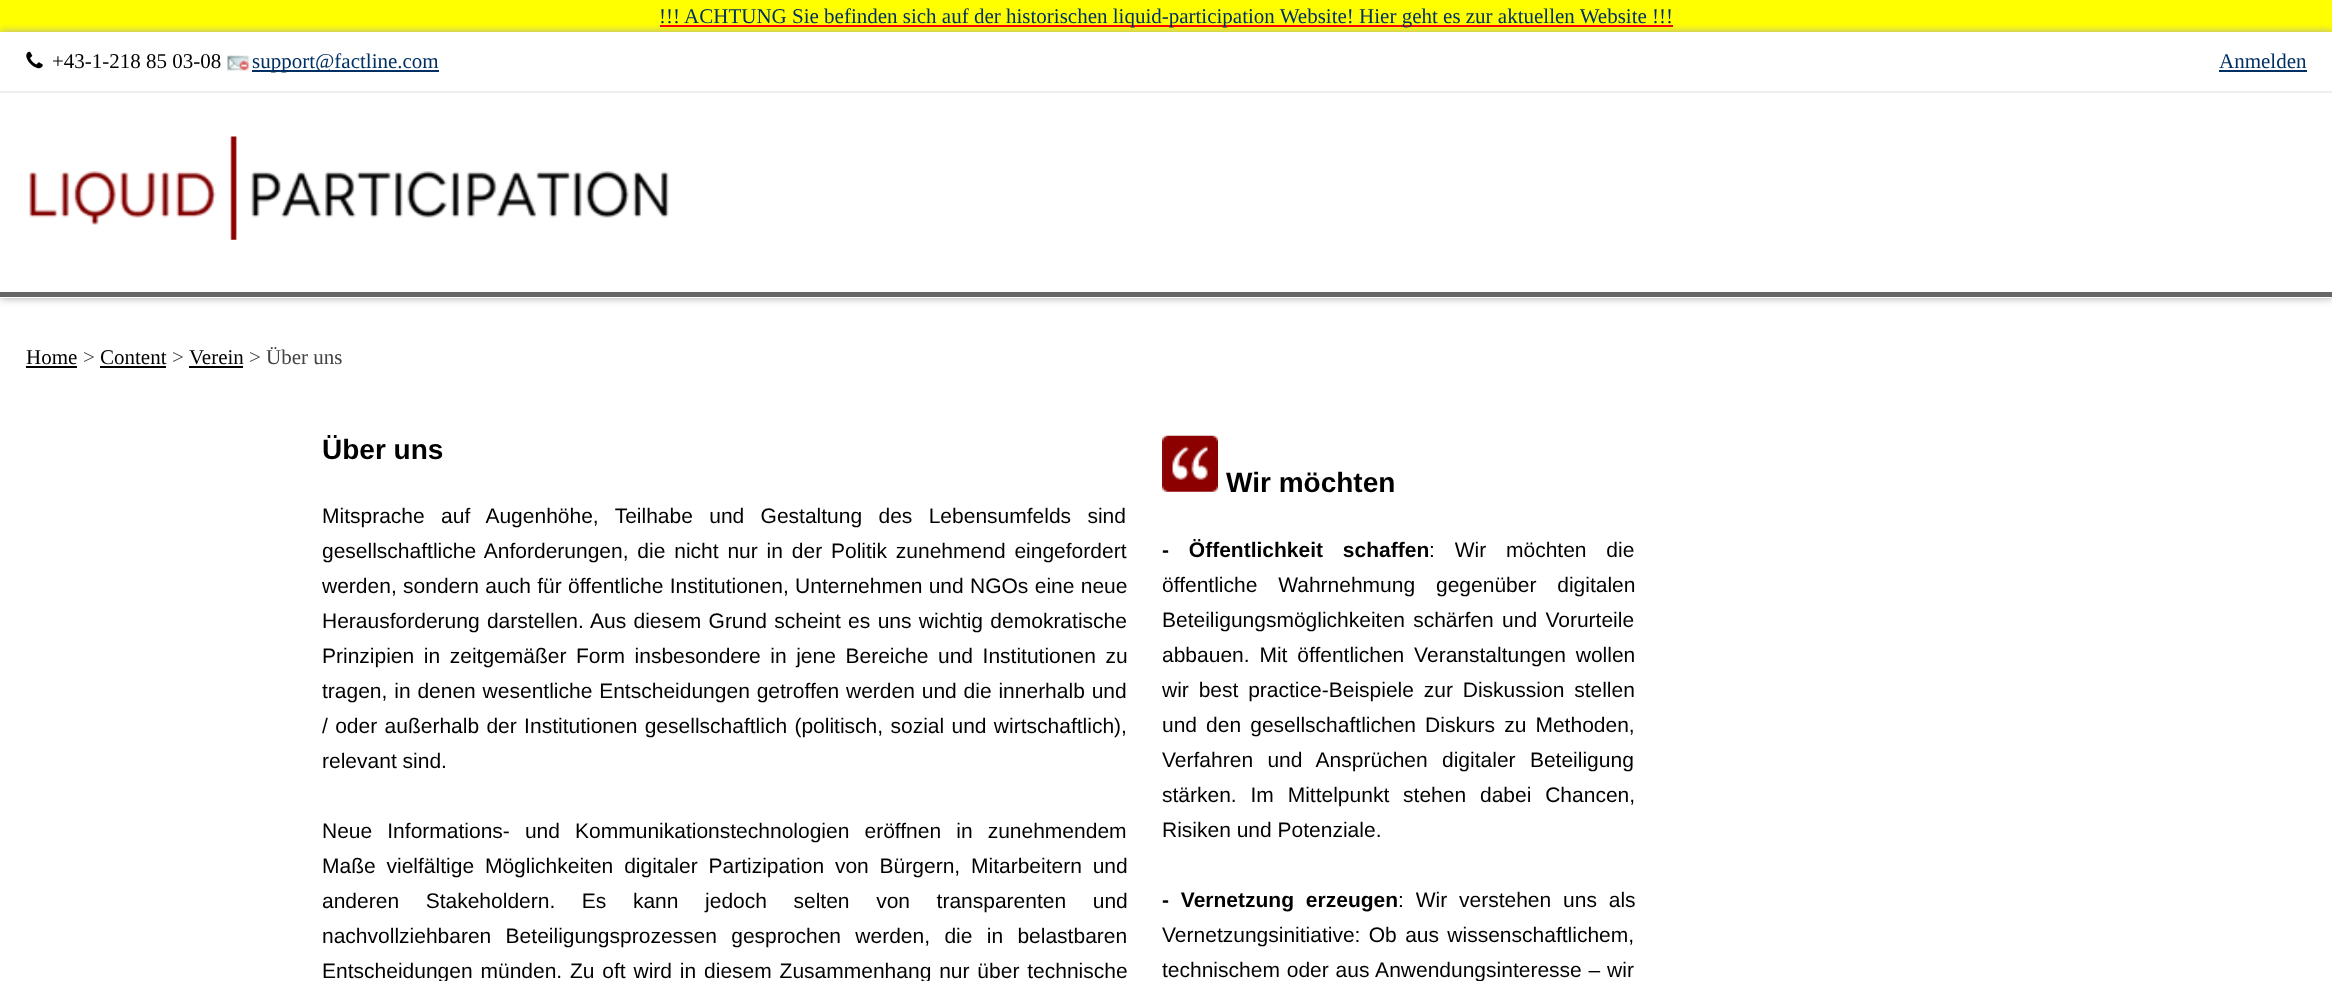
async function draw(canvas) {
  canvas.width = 2332;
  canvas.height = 981;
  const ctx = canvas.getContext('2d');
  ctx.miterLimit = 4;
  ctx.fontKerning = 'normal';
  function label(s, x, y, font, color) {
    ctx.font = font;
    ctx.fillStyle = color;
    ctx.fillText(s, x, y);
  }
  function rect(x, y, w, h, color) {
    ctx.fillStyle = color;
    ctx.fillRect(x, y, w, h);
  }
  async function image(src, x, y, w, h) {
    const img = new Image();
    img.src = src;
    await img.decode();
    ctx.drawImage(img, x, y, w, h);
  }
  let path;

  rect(0, 0, 2332, 981, '#fff');
  rect(0, 0, 2332, 32, '#ff0');
  ctx.save();
  path = new Path2D('M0 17H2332V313H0ZM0 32H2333V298H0Z');
  ctx.clip(path, 'evenodd');
  ctx.fillStyle = '#aaa';
  ctx.filter = 'blur(4.5px)';
  ctx.beginPath();
  ctx.rect(0, 32, 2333, 266);
  ctx.fill();
  ctx.filter = 'none';
  ctx.restore();
  rect(660, 25, 1013, 2, '#f00');
  label('!!! ACHTUNG Sie befinden sich auf der historischen liquid-participation Website! Hier geht es zur aktuellen Website !!!', 659, 23, '21px Liberation Serif', '#003063');
  rect(0, 292, 2332, 5, '#666');
  rect(0, 91, 2332, 2, '#eee');
  await image('assets/img1.png', 26, 51, 17, 18);
  label('+43-1-218 85 03-08', 52, 68, '21px Liberation Serif', '#000');
  await image('assets/img2.png', 227, 55, 22, 16);
  rect(252, 70, 187, 2, '#003063');
  label('support@factline.com', 252, 68, '21px Liberation Serif', '#003063');
  label('Anmelden', 2219, 68, '21px Liberation Serif', '#003063');
  rect(2219, 70, 88, 2, '#003063');
  await image('assets/img3.png', 29, 136, 640, 104);
  label('Home', 26, 364, '21px Liberation Serif', '#000');
  rect(26, 366, 51, 2, '#000');
  label('>', 83, 364, '21px Liberation Serif', '#434343');
  label('Content', 100, 364, '21px Liberation Serif', '#000');
  rect(100, 366, 66, 2, '#000');
  label('>', 172, 364, '21px Liberation Serif', '#434343');
  label('Verein', 189, 364, '21px Liberation Serif', '#000');
  rect(189, 366, 54, 2, '#000');
  label('> Über uns', 249, 364, '21px Liberation Serif', '#434343');
  label('Über uns', 322, 459, 'bold 28px Liberation Sans', '#000');
  ctx.wordSpacing = '10.5px';
  label('Mitsprache auf Augenhöhe, Teilhabe und Gestaltung des Lebensumfelds sind', 322, 523, '21px Liberation Sans', '#000');
  ctx.wordSpacing = '3px';
  label('gesellschaftliche Anforderungen, die nicht nur in der Politik zunehmend eingefordert', 322, 558, '21px Liberation Sans', '#000');
  ctx.wordSpacing = '0.5px';
  label('werden, sondern auch für öffentliche Institutionen, Unternehmen und NGOs eine neue', 322, 593, '21px Liberation Sans', '#000');
  ctx.wordSpacing = '1.5px';
  label('Herausforderung darstellen. Aus diesem Grund scheint es uns wichtig demokratische', 322, 628, '21px Liberation Sans', '#000');
  ctx.wordSpacing = '3.75px';
  label('Prinzipien in zeitgemäßer Form insbesondere in jene Bereiche und Institutionen zu', 322, 663, '21px Liberation Sans', '#000');
  ctx.wordSpacing = '1px';
  label('tragen, in denen wesentliche Entscheidungen getroffen werden und die innerhalb und', 322, 698, '21px Liberation Sans', '#000');
  ctx.wordSpacing = '1.5px';
  label('/ oder außerhalb der Institutionen gesellschaftlich (politisch, sozial und wirtschaftlich),', 322, 733, '21px Liberation Sans', '#000');
  ctx.wordSpacing = '0px';
  label('relevant sind.', 322, 768, '21px Liberation Sans', '#000');
  ctx.wordSpacing = '9.25px';
  label('Neue Informations- und Kommunikationstechnologien eröffnen in zunehmendem', 322, 838, '21px Liberation Sans', '#000');
  ctx.wordSpacing = '5px';
  label('Maße vielfältige Möglichkeiten digitaler Partizipation von Bürgern, Mitarbeitern und', 322, 873, '21px Liberation Sans', '#000');
  ctx.wordSpacing = '20.75px';
  label('anderen Stakeholdern. Es kann jedoch selten von transparenten und', 322, 908, '21px Liberation Sans', '#000');
  ctx.wordSpacing = '8.5px';
  label('nachvollziehbaren Beteiligungsprozessen gesprochen werden, die in belastbaren', 322, 943, '21px Liberation Sans', '#000');
  ctx.wordSpacing = '2px';
  label('Entscheidungen münden. Zu oft wird in diesem Zusammenhang nur über technische', 322, 978, '21px Liberation Sans', '#000');
  await image('assets/img4.png', 1162, 435, 56, 57);
  ctx.wordSpacing = '0px';
  label('Wir möchten', 1226, 492, 'bold 28px Liberation Sans', '#000');
  ctx.wordSpacing = '14px';
  label('- Öffentlichkeit schaffen', 1162, 557, 'bold 21px Liberation Sans', '#000');
  label(': Wir möchten die', 1429, 557, '21px Liberation Sans', '#000');
  ctx.wordSpacing = '15px';
  label('öffentliche Wahrnehmung gegenüber digitalen', 1162, 592, '21px Liberation Sans', '#000');
  ctx.wordSpacing = '2.5px';
  label('Beteiligungsmöglichkeiten schärfen und Vorurteile', 1162, 627, '21px Liberation Sans', '#000');
  ctx.wordSpacing = '4px';
  label('abbauen. Mit öffentlichen Veranstaltungen wollen', 1162, 662, '21px Liberation Sans', '#000');
  label('wir best practice-Beispiele zur Diskussion stellen', 1162, 697, '21px Liberation Sans', '#000');
  ctx.wordSpacing = '3.25px';
  label('und den gesellschaftlichen Diskurs zu Methoden,', 1162, 732, '21px Liberation Sans', '#000');
  ctx.wordSpacing = '8.5px';
  label('Verfahren und Ansprüchen digitaler Beteiligung', 1162, 767, '21px Liberation Sans', '#000');
  ctx.wordSpacing = '8px';
  label('stärken. Im Mittelpunkt stehen dabei Chancen,', 1162, 802, '21px Liberation Sans', '#000');
  ctx.wordSpacing = '0px';
  label('Risiken und Potenziale.', 1162, 837, '21px Liberation Sans', '#000');
  ctx.wordSpacing = '6px';
  label('- Vernetzung erzeugen', 1162, 907, 'bold 21px Liberation Sans', '#000');
  label(': Wir verstehen uns als', 1398, 907, '21px Liberation Sans', '#000');
  ctx.wordSpacing = '2.5px';
  label('Vernetzungsinitiative: Ob aus wissenschaftlichem,', 1162, 942, '21px Liberation Sans', '#000');
  ctx.wordSpacing = '1px';
  label('technischem oder aus Anwendungsinteresse – wir', 1162, 977, '21px Liberation Sans', '#000');
}

draw(document.querySelector('canvas'));
